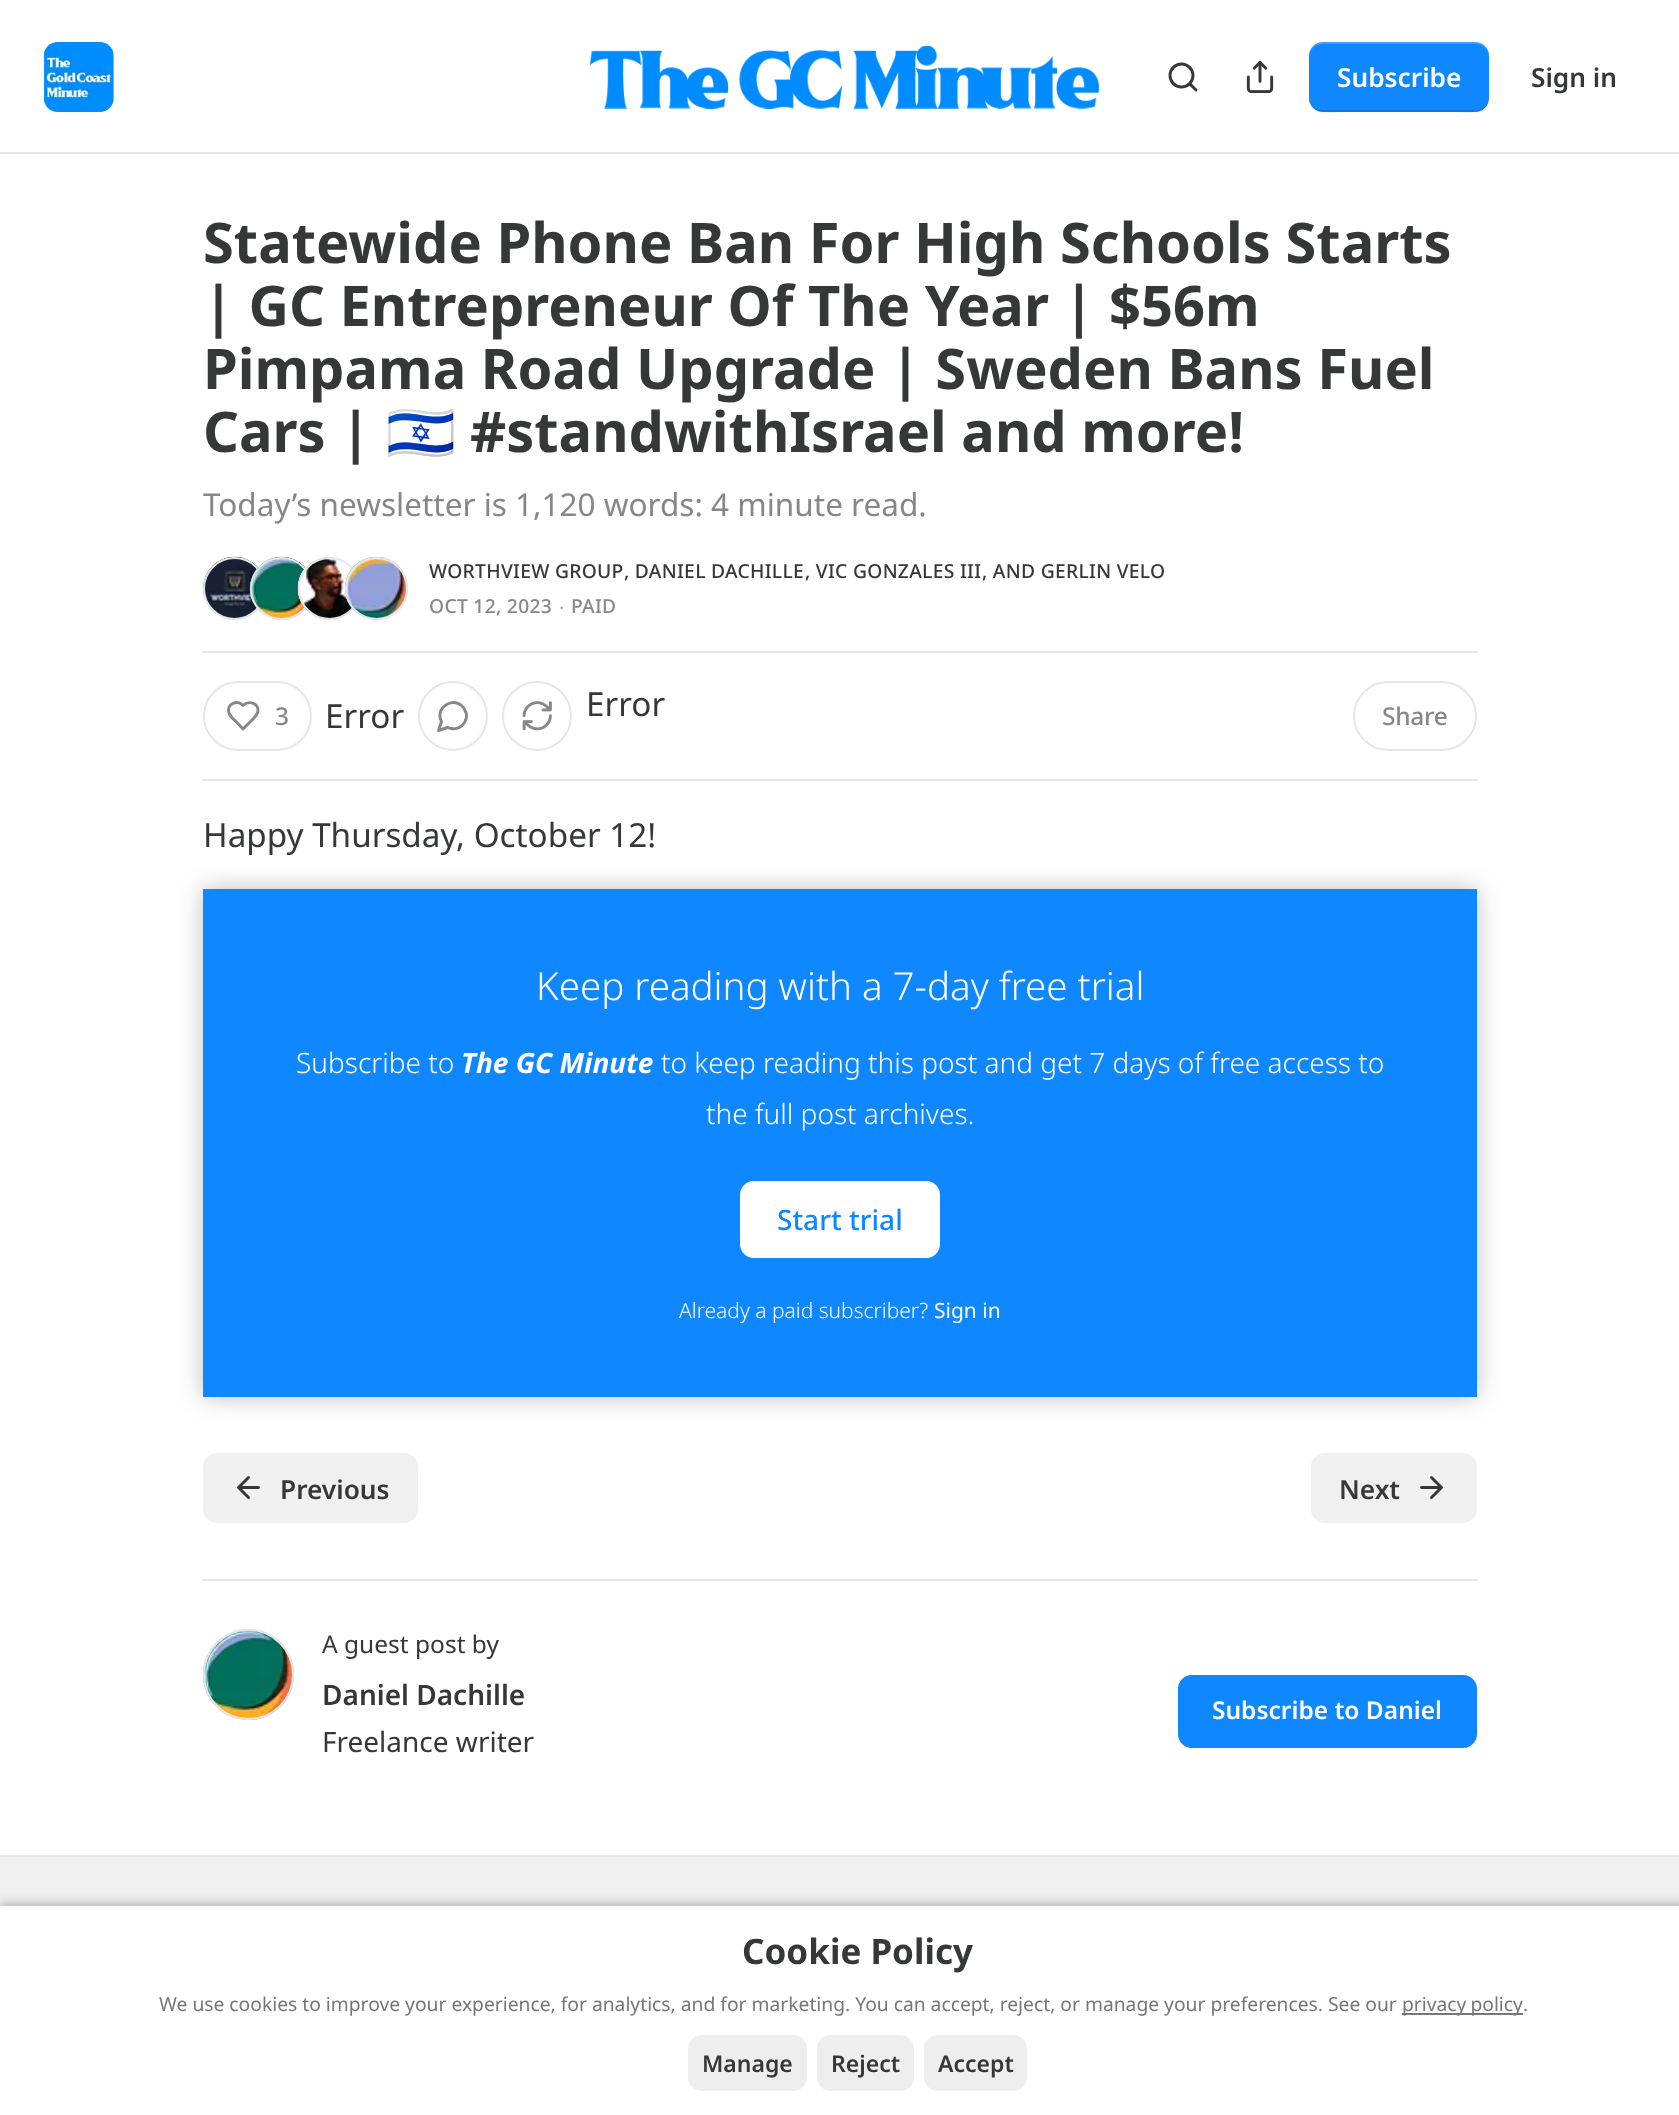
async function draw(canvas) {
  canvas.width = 1679;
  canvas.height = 2115;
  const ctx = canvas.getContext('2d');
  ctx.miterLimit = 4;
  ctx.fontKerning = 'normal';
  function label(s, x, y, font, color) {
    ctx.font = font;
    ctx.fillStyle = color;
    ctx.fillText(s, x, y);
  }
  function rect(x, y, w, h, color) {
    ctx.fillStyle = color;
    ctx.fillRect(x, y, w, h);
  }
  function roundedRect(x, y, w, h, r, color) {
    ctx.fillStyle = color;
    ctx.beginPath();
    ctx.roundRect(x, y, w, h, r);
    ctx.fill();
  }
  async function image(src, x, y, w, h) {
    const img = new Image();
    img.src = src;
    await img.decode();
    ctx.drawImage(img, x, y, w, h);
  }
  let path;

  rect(0, 0, 1679, 2115, '#fff');
  rect(0, 152, 1679, 2, '#e6e6e6');
  await image('assets/img1.png', 43, 42, 71, 70);
  await image('assets/img2.png', 590, 46, 509, 63);
  ctx.beginPath();
  ctx.arc(1181.5, 75.5, 11.5, 0, 2 * Math.PI);
  ctx.strokeStyle = '#363737';
  ctx.lineWidth = 2.9;
  ctx.stroke();
  path = new Path2D('M1196 90L1190 84');
  ctx.lineCap = 'round';
  ctx.lineJoin = 'round';
  ctx.stroke(path);
  await image('assets/img3.png', 1246, 61, 28, 32);
  roundedRect(1309, 42, 180, 70, 14, '#0f87fe');
  ctx.fillStyle = '#0000001a';
  path = new Path2D('M1309 96C1309 118 1333 112 1348 112H1450C1465 112 1489 118 1489 96C1489 104 1483 110 1475 110H1323C1315 110 1309 104 1309 96Z');
  ctx.fill(path);
  ctx.fillStyle = '#ffffff33';
  path = new Path2D('M1323 44H1475C1483 44 1489 50 1489 58C1489 36 1465 42 1450 42H1348C1333 42 1309 36 1309 58C1309 50 1315 44 1323 44Z');
  ctx.fill(path);
  label('Subscribe', 1337, 87, '600 26.25px Noto Sans', '#fff');
  label('Sign in', 1531, 87, '600 26.25px Noto Sans', '#363737');
  label('Statewide Phone Ban For High Schools Starts', 203, 263, 'bold 56px Noto Sans', '#363737');
  label('| GC Entrepreneur Of The Year | $56m', 203, 326, 'bold 56px Noto Sans', '#363737');
  label('Pimpama Road Upgrade | Sweden Bans Fuel', 203, 389, 'bold 56px Noto Sans', '#363737');
  label('Cars |', 203, 452, 'bold 56px Noto Sans', '#363737');
  label('🇮🇱', 386, 452, 'bold 56px Noto Color Emoji', '#363737');
  label('#standwithIsrael and more!', 470, 452, 'bold 56px Noto Sans', '#363737');
  label('Today’s newsletter is 1,120 words: 4 minute read.', 203, 516, '31.5px Noto Sans', '#868787');
  ctx.beginPath();
  ctx.arc(234.5, 588.5, 30.5, 0, 2 * Math.PI);
  ctx.strokeStyle = '#e6e6e6';
  ctx.lineWidth = 2;
  ctx.stroke();
  await image('assets/img4.png', 203, 556, 56, 64);
  ctx.beginPath();
  ctx.arc(234.5, 588.5, 30.5, 0, 2 * Math.PI);
  ctx.stroke();
  ctx.beginPath();
  ctx.arc(281.5, 588.5, 30.5, 0, 2 * Math.PI);
  ctx.stroke();
  await image('assets/img5.png', 250, 556, 56, 64);
  ctx.beginPath();
  ctx.arc(281.5, 588.5, 30.5, 0, 2 * Math.PI);
  ctx.stroke();
  ctx.beginPath();
  ctx.arc(329.5, 588.5, 30.5, 0, 2 * Math.PI);
  ctx.stroke();
  await image('assets/img6.png', 297, 557, 56, 63);
  ctx.beginPath();
  ctx.arc(329.5, 588.5, 30.5, 0, 2 * Math.PI);
  ctx.stroke();
  ctx.beginPath();
  ctx.arc(376.5, 588.5, 30.5, 0, 2 * Math.PI);
  ctx.stroke();
  await image('assets/img7.png', 345, 556, 63, 64);
  ctx.beginPath();
  ctx.arc(376.5, 588.5, 30.5, 0, 2 * Math.PI);
  ctx.stroke();
  ctx.letterSpacing = '0.3px';
  label('WORTHVIEW GROUP', 429, 578, '500 19.25px Noto Sans', '#363737');
  label(', DANIEL DACHILLE', 624, 578, '500 19.25px Noto Sans', '#363737');
  label(', VIC GONZALES III', 805, 578, '500 19.25px Noto Sans', '#363737');
  label(', AND GERLIN VELO', 982, 578, '500 19.25px Noto Sans', '#363737');
  label('OCT 12, 2023', 429, 613, '500 19.25px Noto Sans', '#868787');
  label('∙', 559, 613, '19.25px Liberation Sans', '#868787');
  label('PAID', 571, 613, '500 19.25px Noto Sans', '#868787');
  rect(203, 651, 1274, 2, '#e6e6e6');
  rect(203, 779, 1274, 2, '#e6e6e6');
  ctx.beginPath();
  ctx.roundRect(204, 682, 107, 68, 34);
  ctx.lineJoin = 'miter';
  ctx.stroke();
  path = new Path2D('M253.5 718.5C255 717 256.5 715 257.5 713C260.5 704 249.5 699.5 243 705.5C237 699.5 226 704 229 713C230 716.5 234 719.5 236.5 722L243 729Z');
  ctx.strokeStyle = '#868787';
  ctx.lineWidth = 2.9;
  ctx.lineJoin = 'round';
  ctx.stroke(path);
  ctx.letterSpacing = '-0.25px';
  label('3', 275, 725, '500 24.5px Noto Sans', '#868787');
  ctx.letterSpacing = '0px';
  label('Error', 325, 728, '33.25px Noto Sans', '#363737');
  ctx.beginPath();
  ctx.arc(453, 716, 34, 0, 2 * Math.PI);
  ctx.strokeStyle = '#e6e6e6';
  ctx.lineWidth = 2;
  ctx.stroke();
  path = new Path2D('M447.5 727.5C454 730.5 462 728 465 721.5C467 718 467 714 465 710.5C458 694 433.5 706 441.5 721.5L438.5 730.5Z');
  ctx.strokeStyle = '#868787';
  ctx.lineWidth = 2.9;
  ctx.stroke(path);
  ctx.beginPath();
  ctx.arc(537, 716, 34, 0, 2 * Math.PI);
  ctx.strokeStyle = '#e6e6e6';
  ctx.lineWidth = 2;
  ctx.stroke();
  await image('assets/img8.png', 522, 701, 30, 30);
  label('Error', 586, 716, '33.25px Noto Sans', '#363737');
  ctx.beginPath();
  ctx.roundRect(1354, 682, 122, 68, 34);
  ctx.lineJoin = 'miter';
  ctx.stroke();
  ctx.letterSpacing = '-0.25px';
  label('Share', 1382, 725, '500 24.5px Noto Sans', '#868787');
  ctx.letterSpacing = '0px';
  label('Happy Thursday, October 12!', 203, 847, '33.25px Noto Sans', '#363737');
  rect(203, 889, 1274, 508, '#0f87fe');
  ctx.fillStyle = '#fff';
  ctx.beginPath();
  ctx.roundRect(741, 1182, 198, 75, 13);
  ctx.fill();
  ctx.strokeStyle = '#fff';
  ctx.stroke();
  ctx.save();
  path = new Path2D('M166 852H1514V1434H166ZM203 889H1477V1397H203Z');
  ctx.clip(path, 'evenodd');
  ctx.fillStyle = '#00000040';
  ctx.filter = 'blur(12px)';
  ctx.beginPath();
  ctx.rect(203, 889, 1274, 508);
  ctx.fill();
  ctx.filter = 'none';
  ctx.restore();
  label('Keep reading with a 7-day free trial', 536, 1000, '300 38.5px Noto Sans', '#fff');
  label('Subscribe to', 296, 1073, '300 28px Noto Sans', '#fff');
  label('The GC Minute', 461, 1073, 'italic bold 28px Noto Sans', '#fff');
  label('to keep reading this post and get 7 days of free access to', 661, 1073, '300 28px Noto Sans', '#fff');
  label('the full post archives.', 706, 1124, '300 28px Noto Sans', '#fff');
  label('Start trial', 777, 1230, '500 28px Noto Sans', '#0f87fe');
  label('Already a paid subscriber?', 679, 1318, '300 21px Noto Sans', '#fff');
  label('Sign in', 934, 1318, '21px Noto Sans', '#fff');
  roundedRect(203, 1453, 215, 70, 14, '#f0f0f0');
  path = new Path2D('M248.5 1497.5L238.5 1487.5L248.5 1477.5M258.5 1487.5H238.5');
  ctx.strokeStyle = '#363737';
  ctx.lineWidth = 2.9;
  ctx.lineJoin = 'round';
  ctx.stroke(path);
  label('Previous', 280, 1499, '600 26.25px Noto Sans', '#363737');
  roundedRect(1311, 1453, 166, 70, 14, '#f0f0f0');
  label('Next', 1339, 1499, '600 26.25px Noto Sans', '#363737');
  path = new Path2D('M1421.5 1487.5H1441.5M1431.5 1477.5L1441.5 1487.5L1431.5 1497.5');
  ctx.stroke(path);
  rect(203, 1579, 1274, 2, '#e6e6e6');
  ctx.beginPath();
  ctx.arc(248.5, 1674.5, 44.5, 0, 2 * Math.PI);
  ctx.strokeStyle = '#e6e6e6';
  ctx.lineWidth = 2;
  ctx.stroke();
  await image('assets/img9.png', 203, 1629, 91, 91);
  ctx.beginPath();
  ctx.arc(248.5, 1674.5, 44.5, 0, 2 * Math.PI);
  ctx.stroke();
  label('A guest post by', 322, 1653, '24.5px Noto Sans', '#363737');
  label('Daniel Dachille', 322, 1705, '600 28px Noto Sans', '#363737');
  label('Freelance writer', 322, 1752, '28px Noto Sans', '#363737');
  rect(1213, 1693, 229, 37, '#0f87fe');
  ctx.beginPath();
  ctx.roundRect(1187, 1684, 281, 55, 5);
  ctx.strokeStyle = '#0f87fe';
  ctx.lineWidth = 18;
  ctx.lineJoin = 'miter';
  ctx.stroke();
  rect(1442, 1693, 17, 37, '#0f87fe');
  rect(1196, 1693, 17, 37, '#0f87fe');
  label('Subscribe to Daniel', 1212, 1719, '600 24.5px Noto Sans', '#fff');
  rect(0, 1857, 1679, 49, '#f0f0f0');
  rect(0, 1855, 1679, 2, '#e6e6e6');
  ctx.fillStyle = '#00000033';
  ctx.filter = 'blur(4.5px)';
  ctx.beginPath();
  ctx.rect(0, 1902, 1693, 210);
  ctx.fill();
  ctx.filter = 'none';
  rect(0, 1906, 1679, 209, '#fff');
  label('Cookie Policy', 742, 1964, 'bold 35px Noto Sans', '#363737');
  label('We use cookies to improve your experience, for analytics, and for marketing. You can accept, reject, or manage your preferences. See our', 159, 2011, '19.25px Noto Sans', '#777');
  rect(1402, 2013, 121, 2, '#777');
  ctx.wordSpacing = '-1px';
  label('privacy policy', 1402, 2011, '19.25px Noto Sans', '#777');
  ctx.wordSpacing = '0px';
  label('.', 1523, 2011, '19.25px Noto Sans', '#777');
  roundedRect(688, 2035, 119, 56, 14, '#eee');
  label('Manage', 702, 2072, '600 23px Noto Sans', '#363737');
  roundedRect(817, 2035, 97, 56, 14, '#eee');
  label('Reject', 831, 2072, '600 23px Noto Sans', '#363737');
  roundedRect(924, 2035, 103, 56, 14, '#eee');
  label('Accept', 938, 2072, '600 23px Noto Sans', '#363737');
}

draw(document.querySelector('canvas'));
